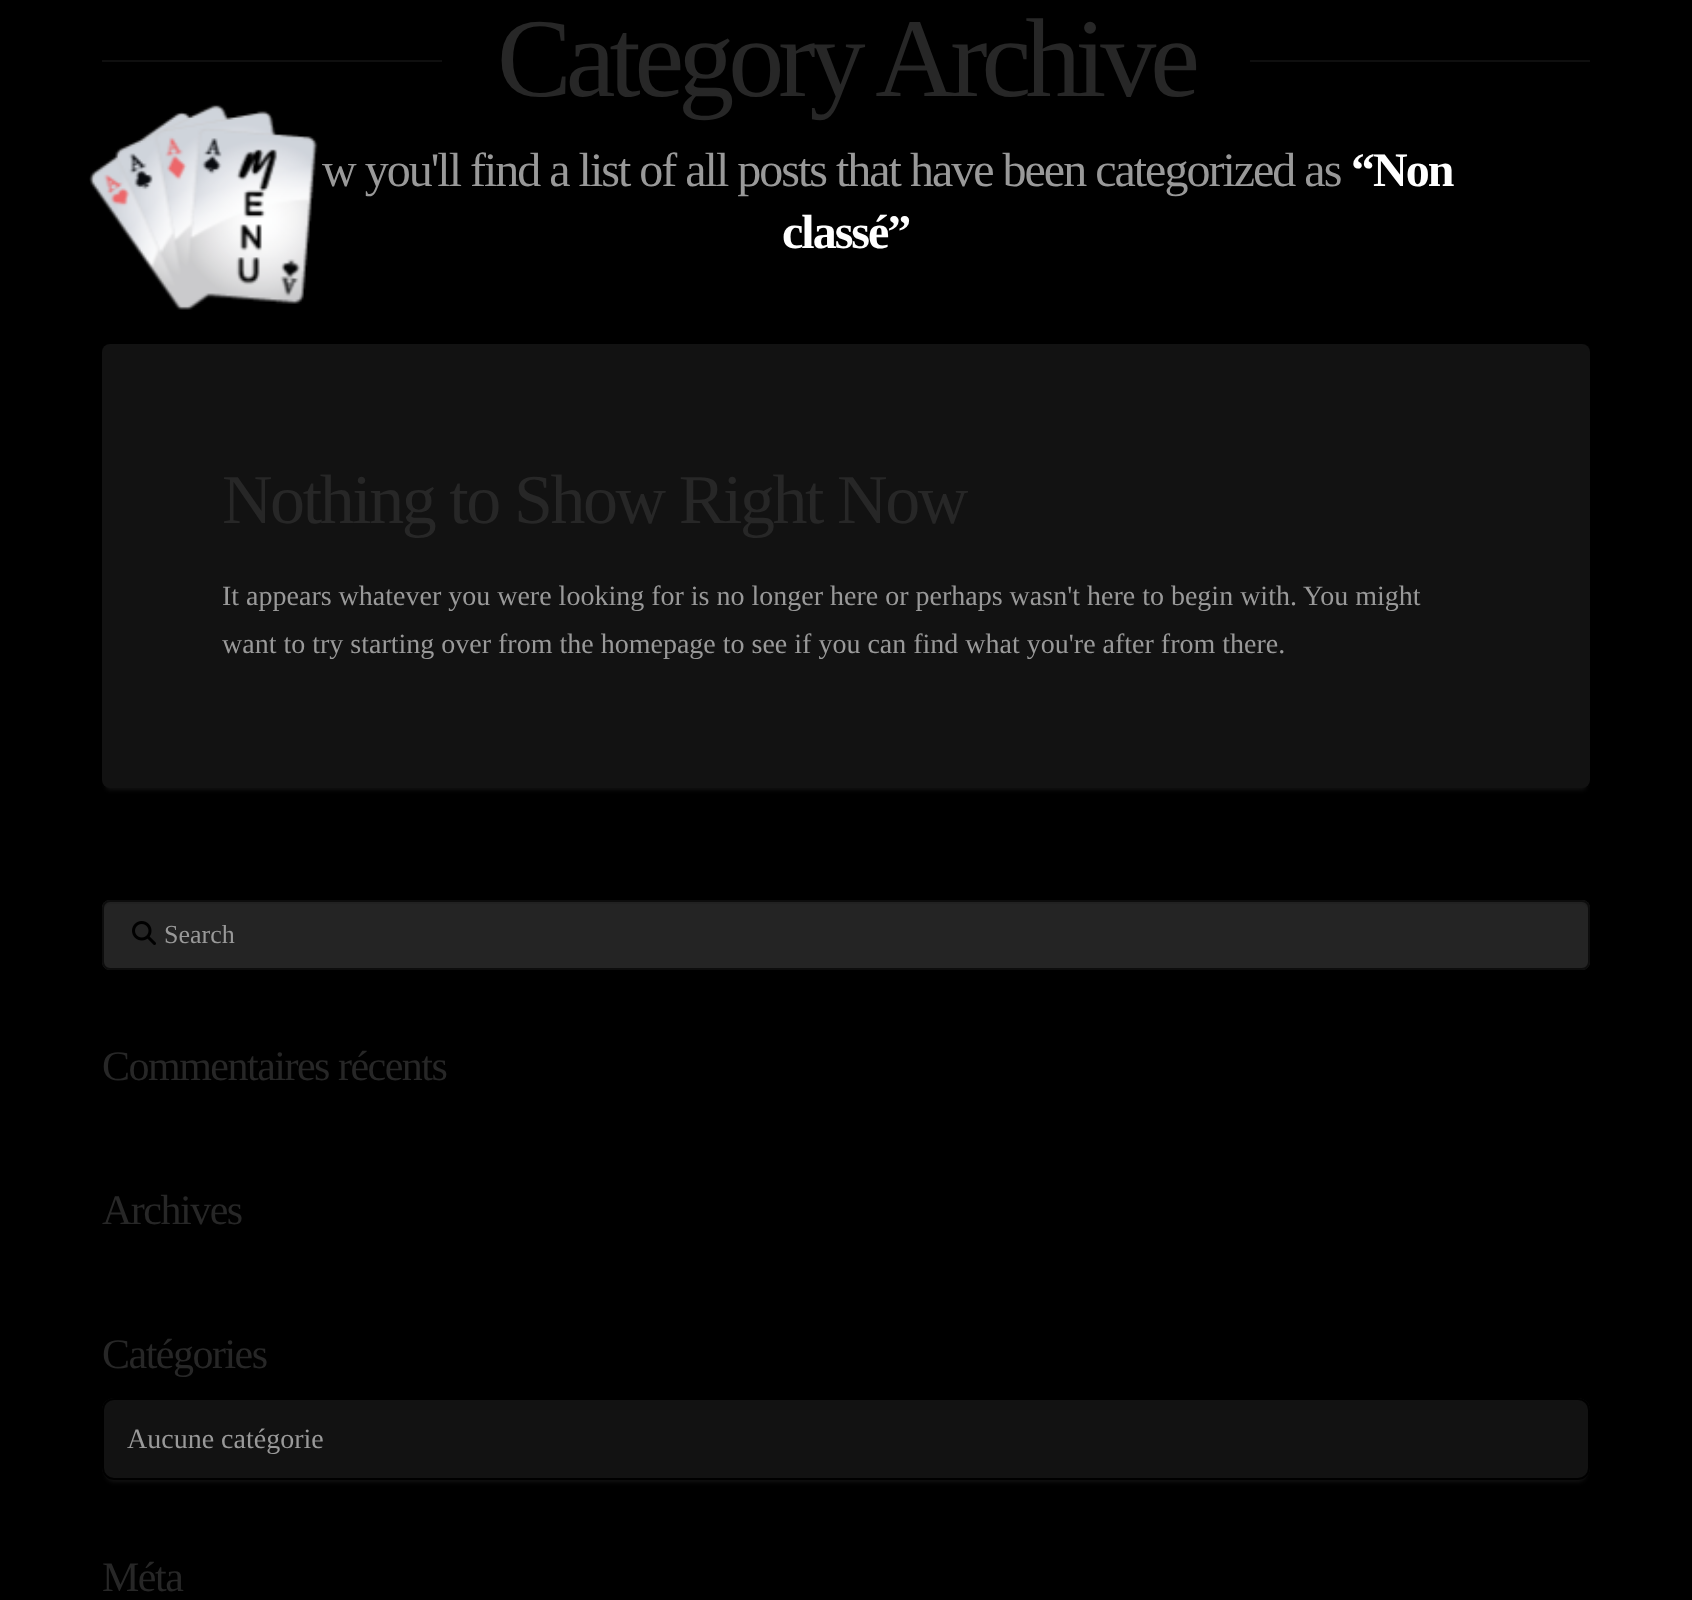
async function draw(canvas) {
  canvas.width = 1692;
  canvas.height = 1600;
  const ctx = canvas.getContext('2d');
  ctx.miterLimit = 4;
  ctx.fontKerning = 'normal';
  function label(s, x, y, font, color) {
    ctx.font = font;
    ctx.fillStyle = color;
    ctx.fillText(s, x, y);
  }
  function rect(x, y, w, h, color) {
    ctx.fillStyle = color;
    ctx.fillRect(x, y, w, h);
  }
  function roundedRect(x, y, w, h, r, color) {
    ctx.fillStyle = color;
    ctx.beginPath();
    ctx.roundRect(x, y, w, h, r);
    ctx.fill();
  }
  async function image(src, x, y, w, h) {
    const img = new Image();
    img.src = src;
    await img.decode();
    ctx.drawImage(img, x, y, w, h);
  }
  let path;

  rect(0, 0, 1692, 1600, '#000');
  rect(102, 60, 340, 2, '#0f0f0f');
  ctx.letterSpacing = '-6px';
  label('Category Archive', 497, 96, '112px Liberation Serif', '#272727');
  rect(1250, 60, 340, 2, '#0f0f0f');
  ctx.letterSpacing = '-2px';
  label('w you\'ll find a list of all posts that have been categorized as', 322, 186, '48px Liberation Serif', '#999');
  label('“Non', 1351, 186, 'bold 48px Liberation Serif', '#fff');
  label('classé”', 782, 248, 'bold 48px Liberation Serif', '#fff');
  ctx.fillStyle = '#ffffff12';
  ctx.filter = 'blur(2px)';
  ctx.beginPath();
  ctx.roundRect(106, 354, 1480, 436, 4);
  ctx.fill();
  ctx.filter = 'none';
  roundedRect(102, 344, 1488, 444, 8, '#121212');
  ctx.letterSpacing = '-2.45px';
  label('Nothing to Show Right Now', 222, 523, '70px Liberation Serif', '#272727');
  ctx.letterSpacing = '0px';
  label('It appears whatever you were looking for is no longer here or perhaps wasn\'t here to begin with. You might', 222, 605, '28px Liberation Serif', '#999');
  label('want to try starting over from the homepage to see if you can find what you\'re after from there.', 222, 653, '28px Liberation Serif', '#999');
  roundedRect(102, 900, 1488, 70, 8, '#242424');
  ctx.fillStyle = '#212121';
  path = new Path2D('M110 904H1582C1585 904 1588 907 1588 910C1588 906 1587 902 1582 902H110C105 902 104 906 104 910C104 907 107 904 110 904Z');
  ctx.fill(path);
  ctx.beginPath();
  ctx.roundRect(103, 901, 1486, 68, 7);
  ctx.strokeStyle = '#0d0d0d';
  ctx.lineWidth = 2;
  ctx.stroke();
  await image('assets/img1.png', 132, 921, 24, 24);
  label('Search', 164, 943, '26px Liberation Serif', '#999');
  ctx.letterSpacing = '-1.5px';
  label('Commentaires récents', 102, 1080, '42px Liberation Serif', '#272727');
  label('Archives', 102, 1224, '42px Liberation Serif', '#272727');
  label('Catégories', 102, 1368, '42px Liberation Serif', '#272727');
  ctx.fillStyle = '#ffffff12';
  ctx.filter = 'blur(2px)';
  ctx.beginPath();
  ctx.roundRect(106, 1408, 1480, 74, 8);
  ctx.fill();
  ctx.filter = 'none';
  roundedRect(102, 1398, 1488, 82, 12, '#121212');
  ctx.beginPath();
  ctx.roundRect(103, 1399, 1486, 80, 11);
  ctx.strokeStyle = '#000000f2';
  ctx.stroke();
  ctx.letterSpacing = '0px';
  label('Aucune catégorie', 127, 1448, '28px Liberation Serif', '#999');
  ctx.letterSpacing = '-1.5px';
  label('Méta', 102, 1591, '42px Liberation Serif', '#272727');
  await image('assets/img2.png', 89, 104, 229, 206);
}

draw(document.querySelector('canvas'));
